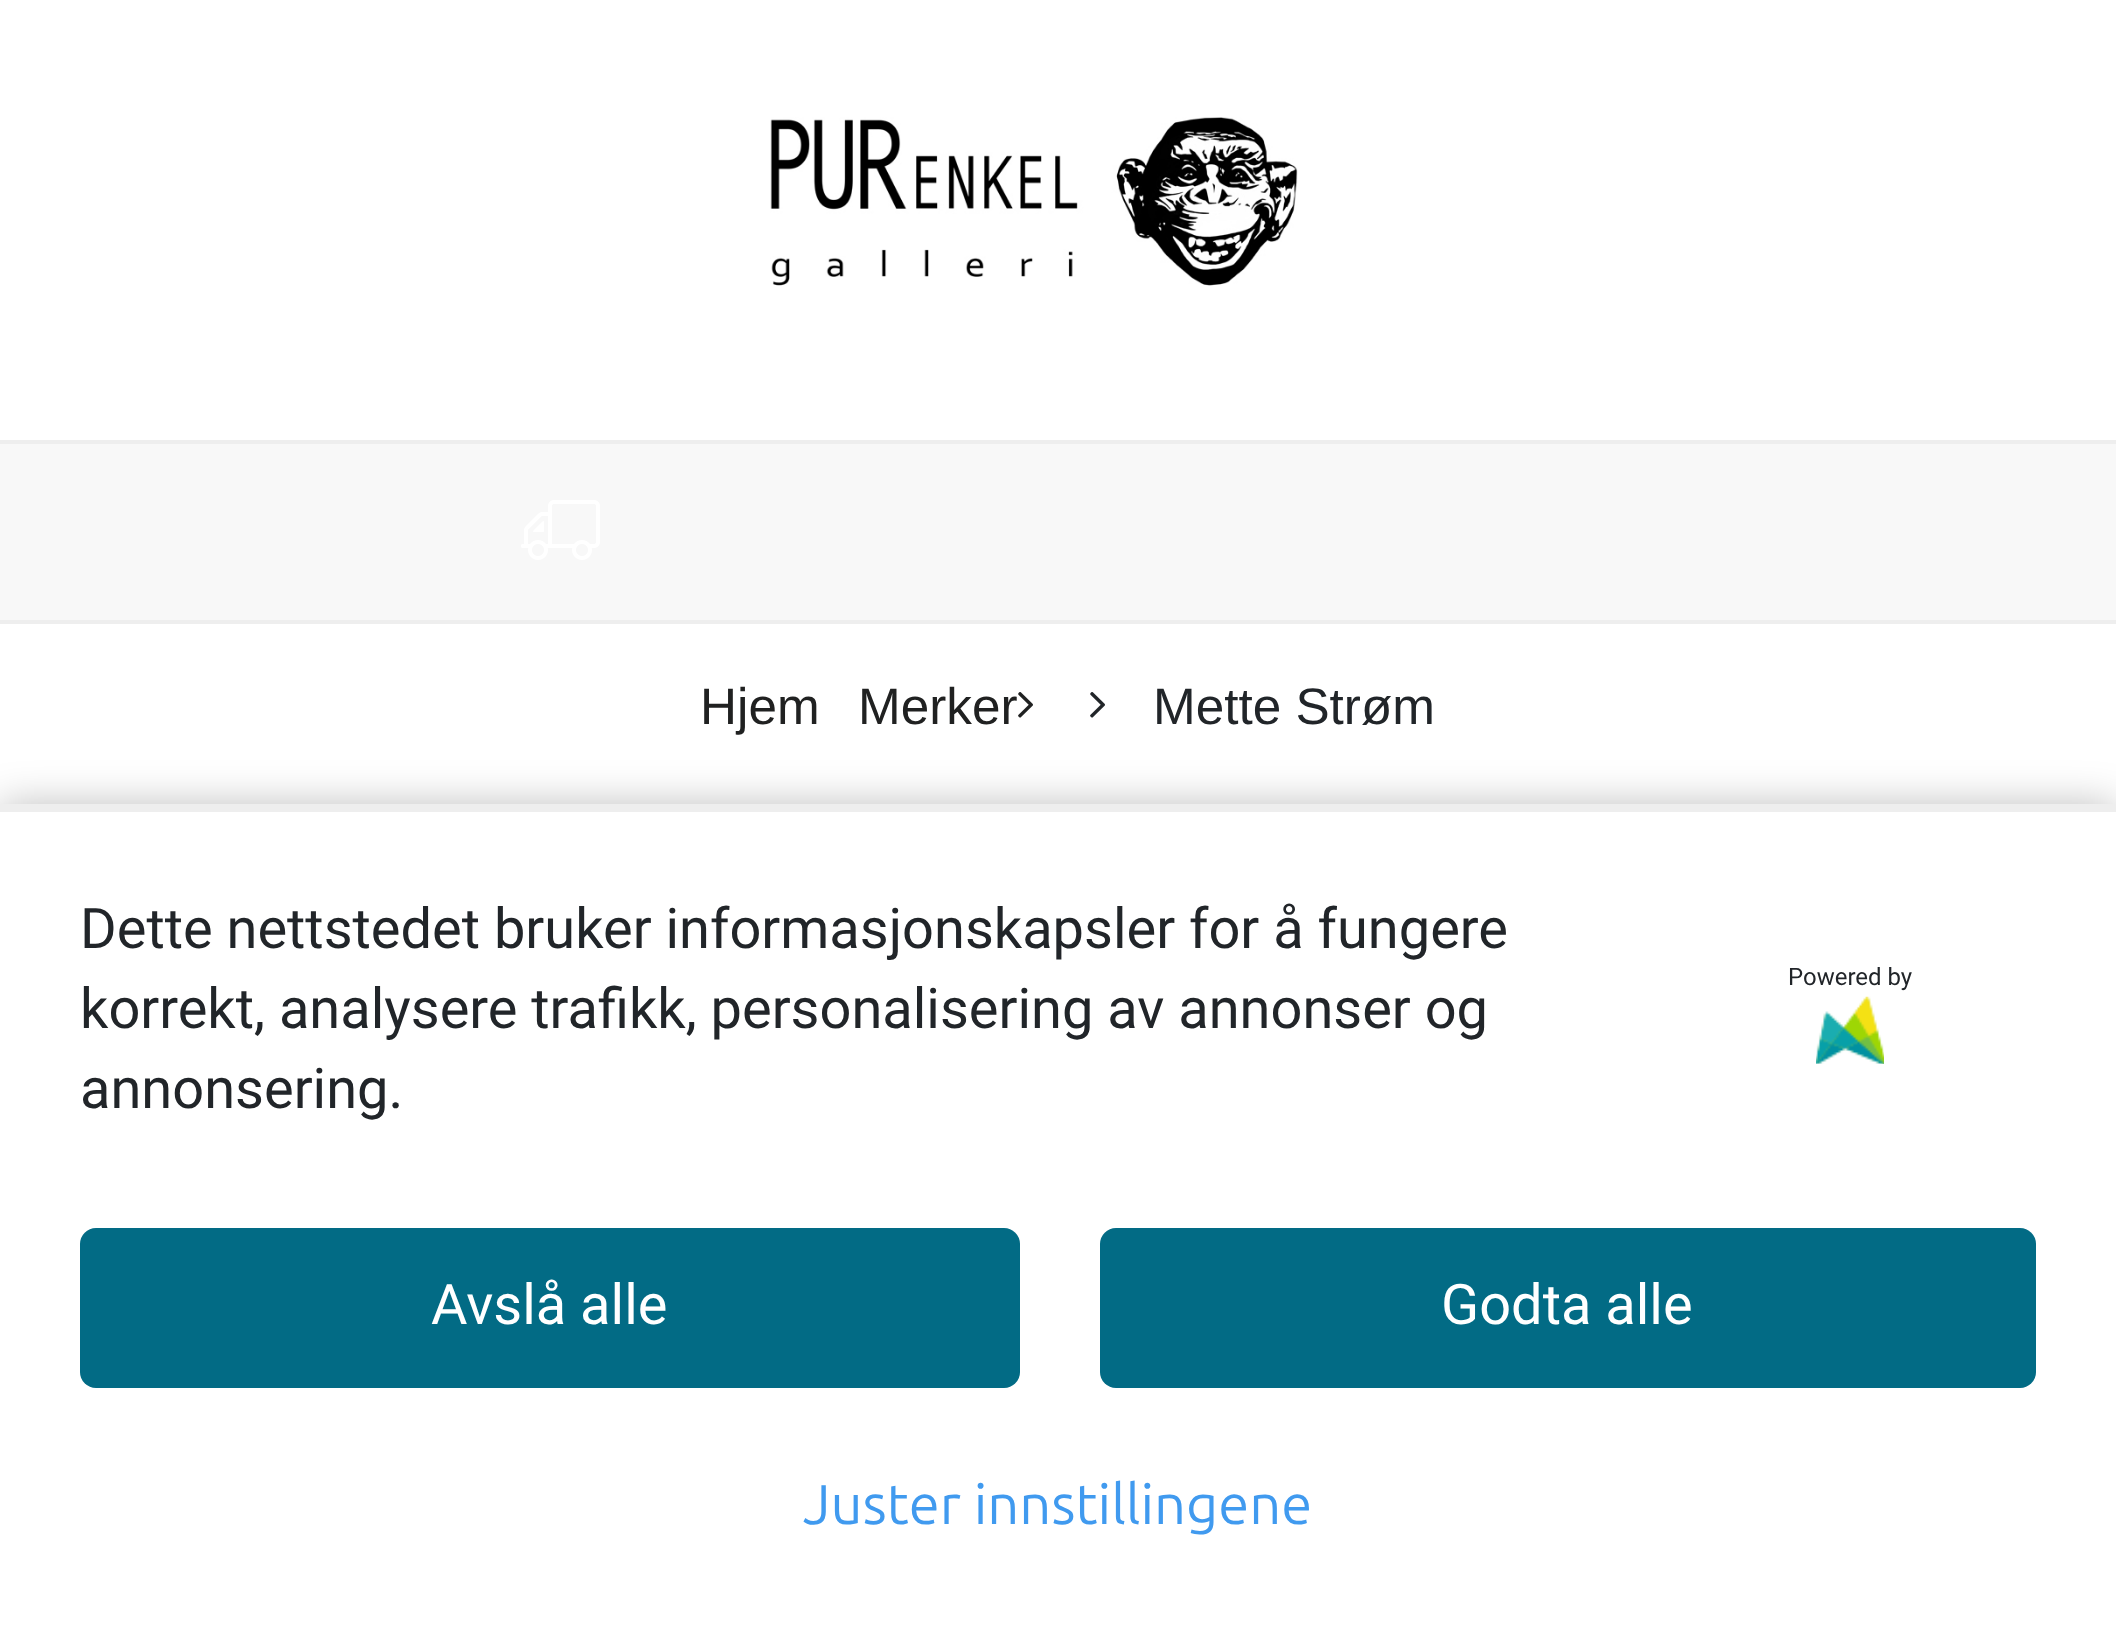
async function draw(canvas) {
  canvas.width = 2116;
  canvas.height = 1625;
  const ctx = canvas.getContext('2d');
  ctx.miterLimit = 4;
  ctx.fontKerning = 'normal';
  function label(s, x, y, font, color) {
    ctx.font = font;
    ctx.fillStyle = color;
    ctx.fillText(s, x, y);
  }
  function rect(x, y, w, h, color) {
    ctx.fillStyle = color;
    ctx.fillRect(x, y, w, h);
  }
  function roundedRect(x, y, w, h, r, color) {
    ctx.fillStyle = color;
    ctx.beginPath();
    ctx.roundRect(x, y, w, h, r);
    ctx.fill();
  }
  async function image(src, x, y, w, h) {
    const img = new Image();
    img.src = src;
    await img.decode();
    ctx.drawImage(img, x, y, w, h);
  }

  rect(0, 0, 2116, 1625, '#fff');
  await image('assets/img1.png', 770, 117, 528, 169);
  rect(0, 444, 2116, 176, '#f8f8f8');
  rect(0, 440, 2116, 4, '#eee');
  rect(0, 620, 2116, 4, '#eee');
  await image('assets/img2.png', 521, 500, 79, 60);
  label('Hjem', 700, 724, '51.25px Liberation Sans', '#202121');
  label('Merker', 858, 724, '51.25px Liberation Sans', '#202121');
  await image('assets/img3.png', 1018, 692, 15, 26);
  await image('assets/img4.png', 1090, 692, 15, 26);
  label('Mette Strøm', 1153, 724, '51.25px Liberation Sans', '#212529');
  ctx.fillStyle = '#00000040';
  ctx.filter = 'blur(20px)';
  ctx.beginPath();
  ctx.rect(0, 804, 2116, 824);
  ctx.fill();
  ctx.filter = 'none';
  rect(0, 812, 2116, 813, '#fff');
  rect(0, 804, 2116, 8, '#eee');
  label('Dette nettstedet bruker informasjonskapsler for å fungere', 80, 948, '56px Roboto', '#212529');
  label('korrekt, analysere trafikk, personalisering av annonser og', 80, 1028, '56px Roboto', '#212529');
  label('annonsering.', 80, 1108, '56px Roboto', '#212529');
  label('Powered by', 1788, 985, '24px Roboto', '#212529');
  await image('assets/img5.png', 1816, 996, 68, 68);
  roundedRect(80, 1228, 940, 160, 16, '#026b85');
  label('Avslå alle', 431, 1324, '56px Roboto', '#fff');
  roundedRect(1100, 1228, 936, 160, 16, '#026b85');
  label('Godta alle', 1441, 1324, '56px Roboto', '#fff');
  label('Juster innstillingene', 803, 1524, '56px Ubuntu', '#409aef');
}

draw(document.querySelector('canvas'));
